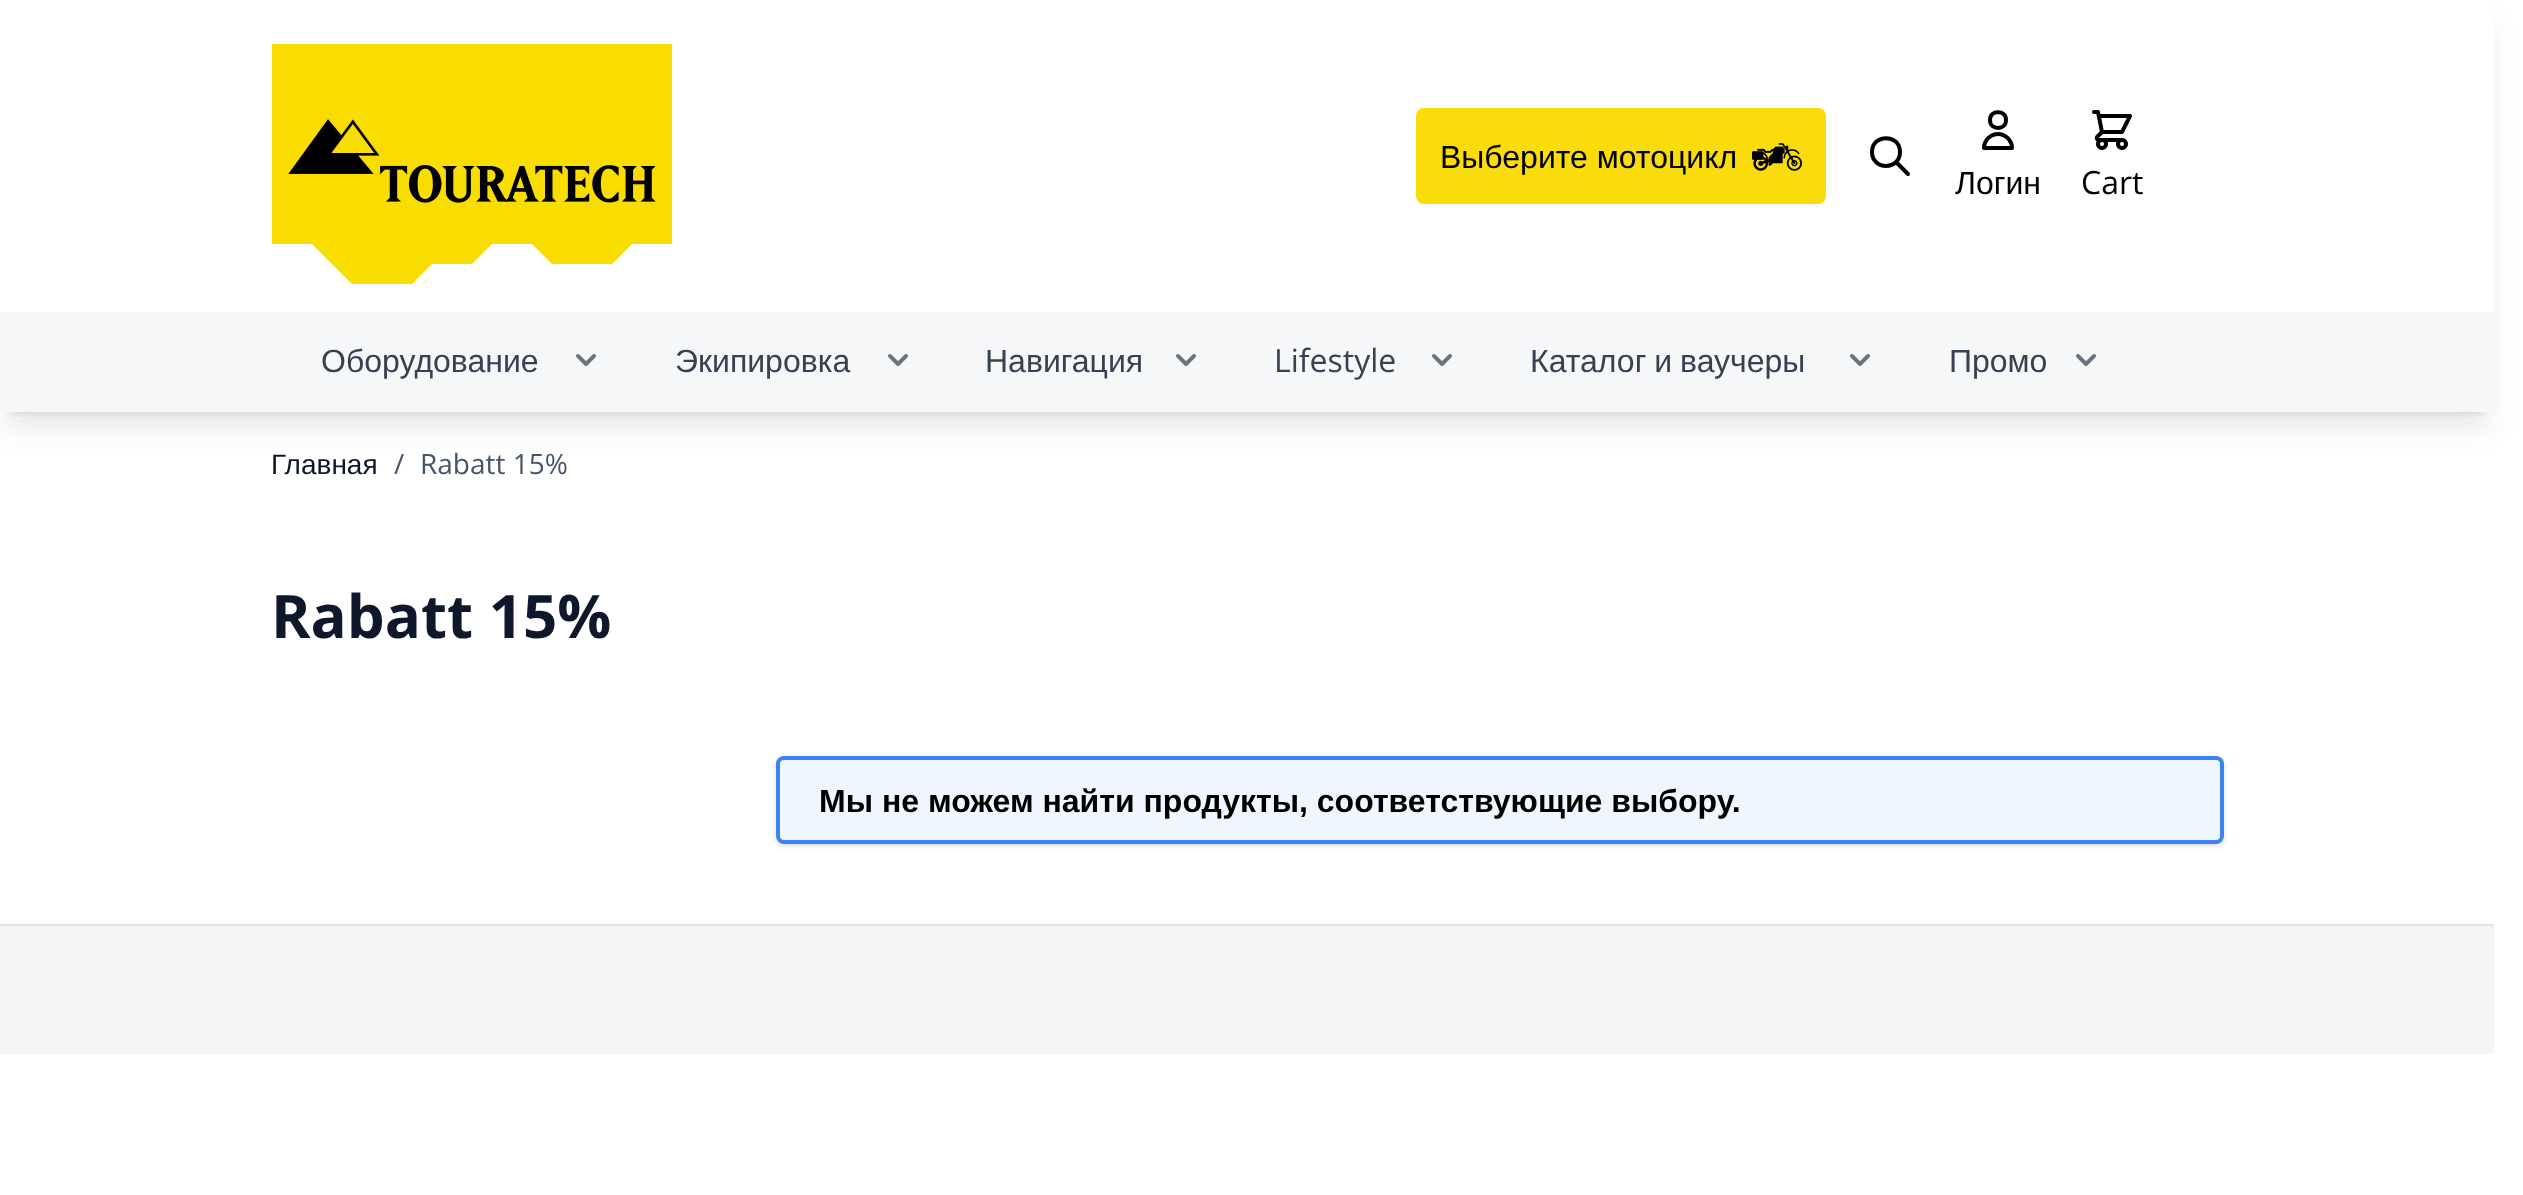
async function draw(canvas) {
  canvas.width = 2523;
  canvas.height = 1195;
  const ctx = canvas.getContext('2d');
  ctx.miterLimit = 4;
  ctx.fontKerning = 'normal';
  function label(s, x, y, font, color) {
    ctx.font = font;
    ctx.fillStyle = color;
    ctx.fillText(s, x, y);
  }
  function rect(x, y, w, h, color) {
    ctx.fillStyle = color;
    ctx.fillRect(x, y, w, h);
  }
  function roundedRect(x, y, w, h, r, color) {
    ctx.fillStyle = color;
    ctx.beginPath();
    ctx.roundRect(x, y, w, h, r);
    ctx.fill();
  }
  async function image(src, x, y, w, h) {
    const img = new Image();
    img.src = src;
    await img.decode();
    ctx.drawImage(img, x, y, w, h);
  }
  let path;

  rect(0, 0, 2523, 1195, '#fff');
  ctx.save();
  ctx.beginPath();
  ctx.rect(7, 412, 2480, 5);
  ctx.clip();
  ctx.fillStyle = '#0000001a';
  ctx.filter = 'blur(6px)';
  ctx.beginPath();
  ctx.rect(8, 16, 2478, 396);
  ctx.fill();
  ctx.filter = 'none';
  ctx.restore();
  ctx.save();
  path = new Path2D('M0 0H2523V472H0ZM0 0H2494V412H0Z');
  ctx.clip(path, 'evenodd');
  ctx.fillStyle = '#0000001a';
  ctx.filter = 'blur(15px)';
  ctx.beginPath();
  ctx.rect(6, 26, 2482, 400);
  ctx.fill();
  ctx.filter = 'none';
  ctx.restore();
  await image('assets/img1.png', 272, 44, 400, 240);
  roundedRect(1416, 108, 410, 96, 8, '#f9dc0a');
  label('Выберите мотоцикл', 1440, 168, '32px Liberation Sans', '#000');
  await image('assets/img2.png', 1752, 143, 50, 28);
  path = new Path2D('M1908 174L1896 162M1900 152C1900 170.5 1872 170.5 1872 152C1872 133.5 1900 133.5 1900 152Z');
  ctx.strokeStyle = '#000';
  ctx.lineWidth = 4;
  ctx.lineCap = 'round';
  ctx.lineJoin = 'round';
  ctx.stroke(path);
  path = new Path2D('M2006 120C2006 130.5 1990 130.5 1990 120C1990 109.5 2006 109.5 2006 120ZM1998 134C1990.5 134 1984 140.5 1984 148H2012C2012 140.5 2005.5 134 1998 134Z');
  ctx.stroke(path);
  label('Логин', 1955, 194, '32px Liberation Sans', '#000');
  await image('assets/img3.png', 2092, 110, 40, 40);
  label('Cart', 2081, 194, '32px Open Sans', '#000');
  rect(0, 312, 2494, 100, '#f6f7f8');
  label('Оборудование', 321, 372, '32px Liberation Sans', '#374151');
  await image('assets/img4.png', 576, 354, 20, 12);
  label('Экипировка', 675, 372, '32px Liberation Sans', '#374151');
  await image('assets/img4.png', 888, 354, 20, 12);
  label('Навигация', 985, 372, '32px Liberation Sans', '#374151');
  await image('assets/img4.png', 1176, 354, 20, 12);
  label('Lifestyle', 1274, 372, '32px Open Sans', '#374151');
  await image('assets/img4.png', 1432, 354, 20, 12);
  ctx.wordSpacing = '-1px';
  label('Каталог и ваучеры', 1530, 372, '32px Liberation Sans', '#374151');
  await image('assets/img4.png', 1850, 354, 20, 12);
  ctx.wordSpacing = '0px';
  label('Промо', 1949, 372, '32px Liberation Sans', '#374151');
  await image('assets/img4.png', 2076, 354, 20, 12);
  label('Главная', 271, 474, '28px Liberation Sans', '#0f172a');
  label('/', 394, 474, '28px Open Sans', '#475569');
  label('Rabatt 15%', 420, 474, '28px Open Sans', '#475569');
  label('Rabatt 15%', 271, 638, 'bold 60px Open Sans', '#0f172a');
  ctx.fillStyle = '#0000001a';
  ctx.filter = 'blur(2px)';
  ctx.beginPath();
  ctx.roundRect(778, 760, 1444, 84, 6);
  ctx.fill();
  ctx.filter = 'none';
  ctx.filter = 'blur(3px)';
  ctx.beginPath();
  ctx.roundRect(776, 758, 1448, 88, 8);
  ctx.fill();
  ctx.filter = 'none';
  ctx.fillStyle = '#eff6ff';
  ctx.beginPath();
  ctx.roundRect(778, 758, 1444, 84, 6);
  ctx.fill();
  ctx.strokeStyle = '#3b82f6';
  ctx.lineJoin = 'miter';
  ctx.stroke();
  label('Мы не можем найти продукты, соответствующие выбору.', 819, 812, 'bold 32px Liberation Sans', '#000');
  rect(0, 926, 2494, 128, '#f4f4f5');
  rect(0, 924, 2494, 2, '#e4e4e7');
}

draw(document.querySelector('canvas'));
